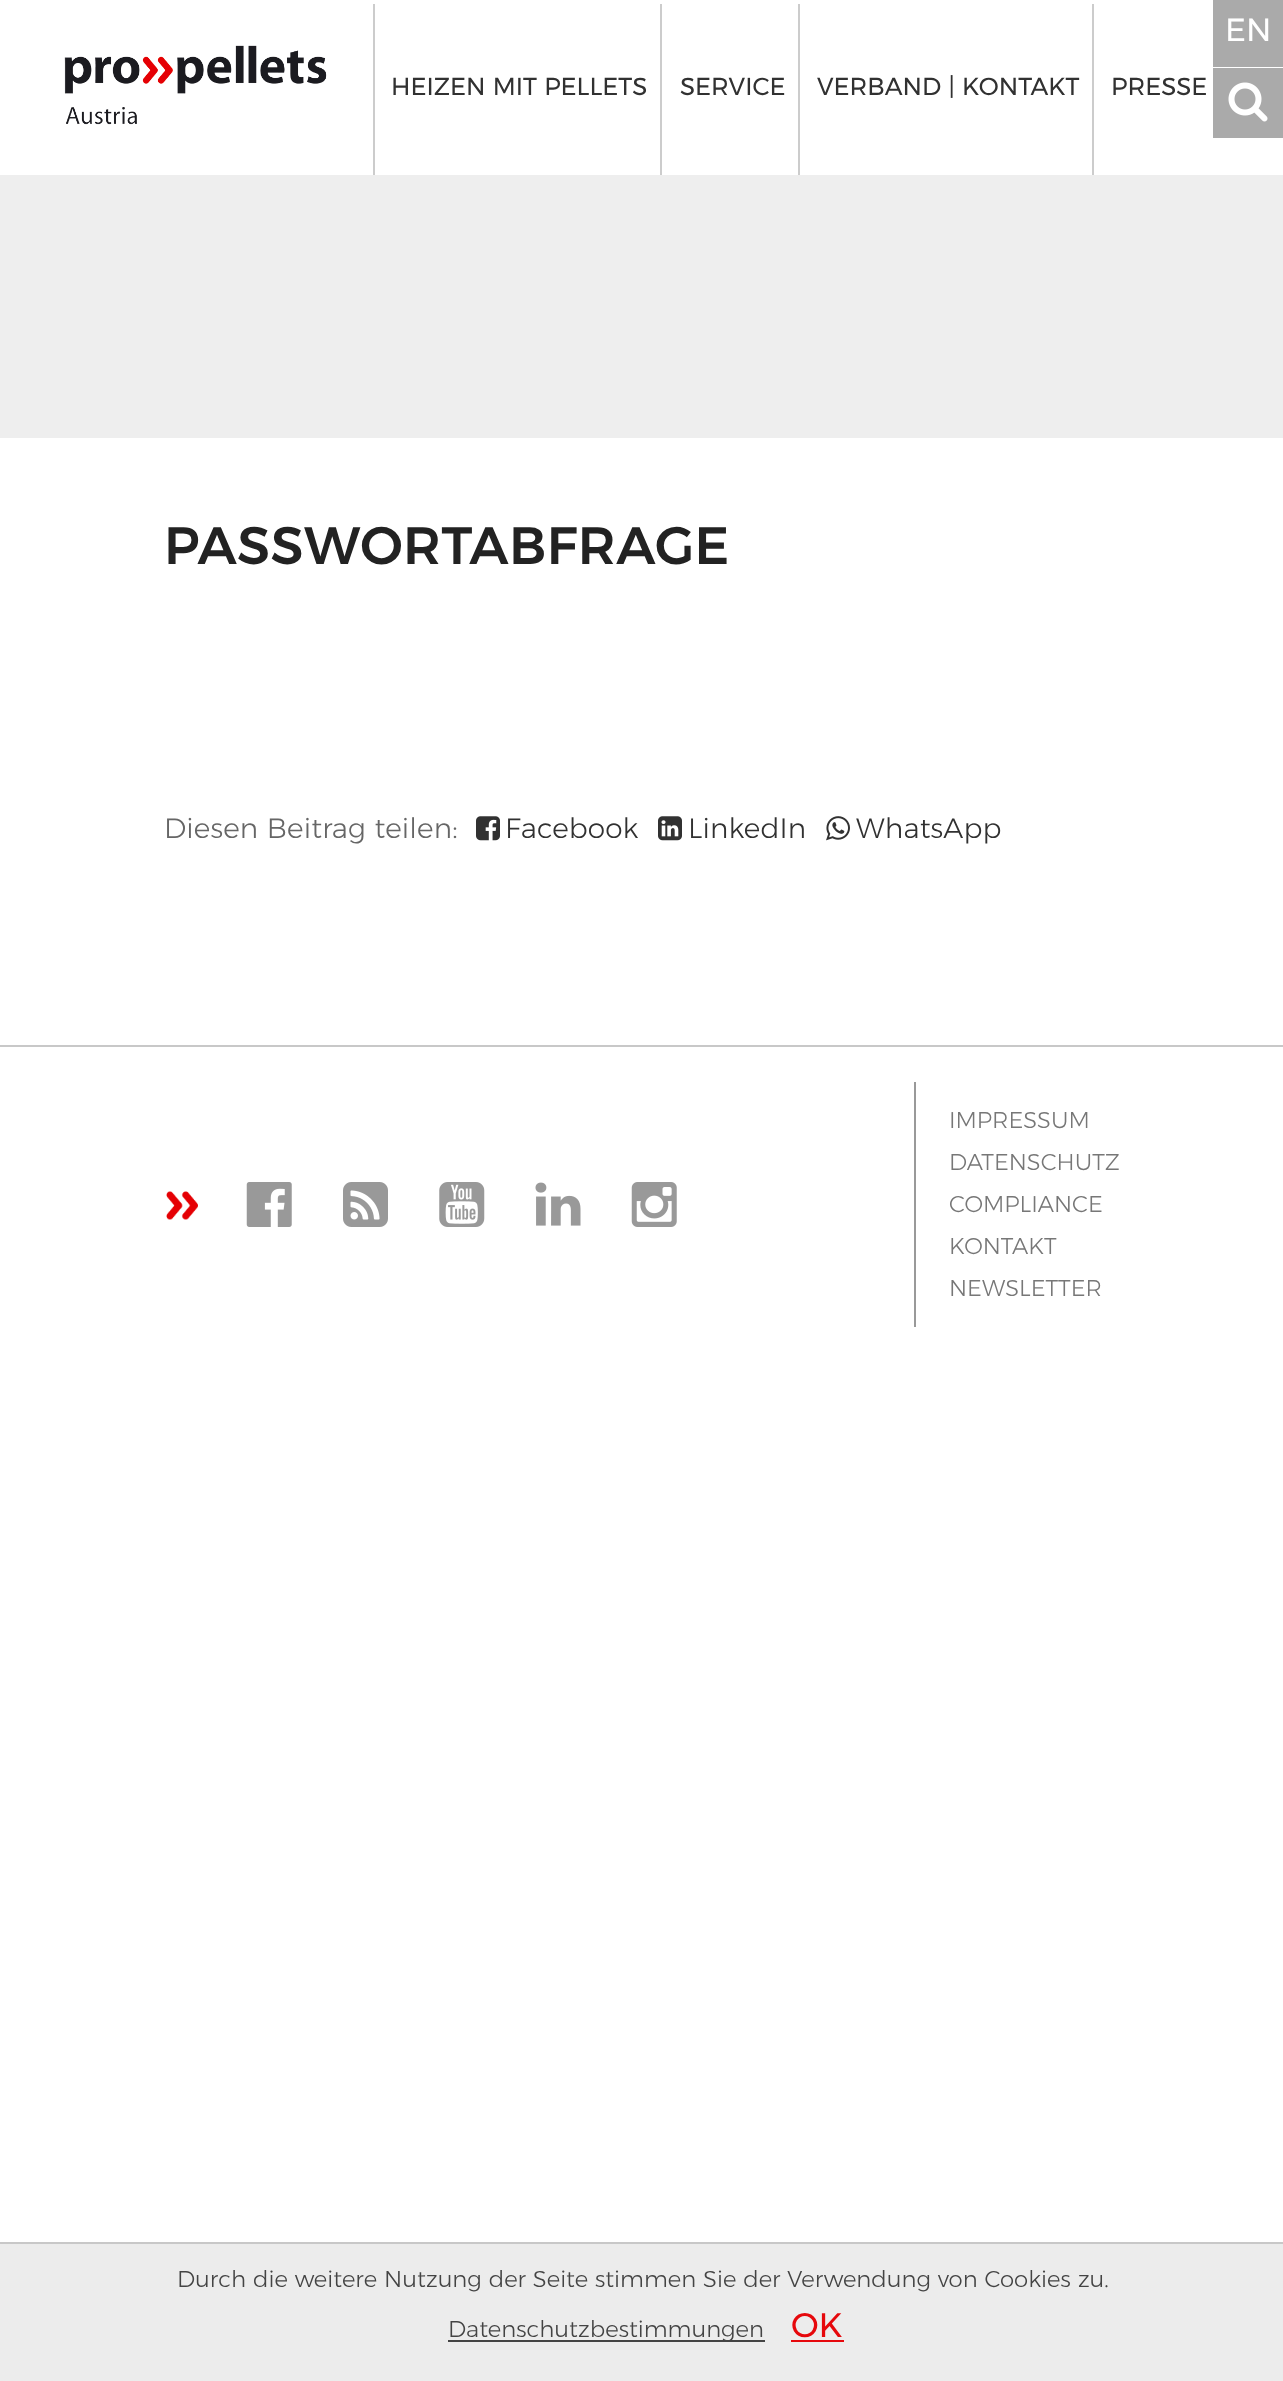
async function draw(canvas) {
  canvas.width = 1283;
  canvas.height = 2381;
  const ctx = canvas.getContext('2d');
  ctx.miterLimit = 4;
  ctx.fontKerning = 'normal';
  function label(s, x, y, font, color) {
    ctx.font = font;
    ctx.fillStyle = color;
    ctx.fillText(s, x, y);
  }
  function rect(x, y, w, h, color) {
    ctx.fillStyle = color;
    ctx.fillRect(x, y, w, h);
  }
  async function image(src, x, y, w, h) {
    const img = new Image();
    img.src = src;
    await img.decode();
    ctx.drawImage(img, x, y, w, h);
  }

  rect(0, 0, 1283, 2381, '#fff');
  rect(1213, 0, 70, 67, '#aaa');
  label('EN', 1225, 41, '32px Montserrat', '#fff');
  rect(1213, 68, 70, 70, '#aaa');
  await image('assets/img1.png', 1228, 82, 40, 40);
  await image('assets/img2.png', 64, 45, 263, 80);
  rect(373, 4, 2, 171, '#ccc');
  label('HEIZEN MIT PELLETS', 391, 95, '24.5px Montserrat', '#313131');
  rect(660, 4, 2, 171, '#ccc');
  label('SERVICE', 680, 95, '24.5px Montserrat', '#313131');
  rect(798, 4, 2, 171, '#ccc');
  label('VERBAND | KONTAKT', 817, 95, '24.5px Montserrat', '#313131');
  rect(1092, 4, 2, 171, '#ccc');
  label('PRESSE', 1111, 95, '24.5px Montserrat', '#313131');
  rect(0, 175, 1283, 263, '#eee');
  ctx.letterSpacing = '0.5px';
  label('PASSWORTABFRAGE', 164, 564, '500 52.5px Montserrat', '#222');
  ctx.letterSpacing = '0.15px';
  label('Diesen Beitrag teilen:', 164, 838, '300 28px Montserrat', '#666');
  await image('assets/img3.png', 476, 816, 24, 25);
  label('Facebook', 505, 838, '300 28px Montserrat', '#313131');
  await image('assets/img4.png', 658, 816, 24, 25);
  label('LinkedIn', 688, 838, '300 28px Montserrat', '#313131');
  await image('assets/img5.png', 826, 816, 24, 25);
  label('WhatsApp', 856, 838, '300 28px Montserrat', '#313131');
  rect(0, 1045, 1283, 2, '#c8c8c8');
  await image('assets/img6.png', 166, 1191, 32, 29);
  await image('assets/img7.png', 246, 1182, 46, 45);
  await image('assets/img8.png', 343, 1182, 45, 45);
  await image('assets/img9.png', 439, 1182, 46, 45);
  await image('assets/img10.png', 535, 1182, 46, 44);
  await image('assets/img11.png', 631, 1182, 46, 45);
  rect(914, 1082, 2, 245, '#999');
  ctx.letterSpacing = '0px';
  label('IMPRESSUM', 949, 1128, '300 22.75px Montserrat', '#777');
  label('DATENSCHUTZ', 949, 1170, '300 22.75px Montserrat', '#777');
  label('COMPLIANCE', 949, 1212, '300 22.75px Montserrat', '#777');
  label('KONTAKT', 949, 1254, '300 22.75px Montserrat', '#777');
  label('NEWSLETTER', 949, 1296, '300 22.75px Montserrat', '#777');
  rect(0, 2244, 1283, 137, '#ececec');
  rect(0, 2242, 1283, 2, '#c8c8c8');
  label('Durch die weitere Nutzung der Seite stimmen Sie der Verwendung von Cookies zu.', 177, 2287, '300 22.85px Montserrat', '#444');
  rect(448, 2340, 317, 2, '#444');
  label('Datenschutzbestimmungen', 448, 2337, '300 22.85px Montserrat', '#444');
  label('OK', 791, 2337, '34px Montserrat', '#e6080c');
  rect(791, 2340, 53, 2, '#e6080c');
}

draw(document.querySelector('canvas'));
